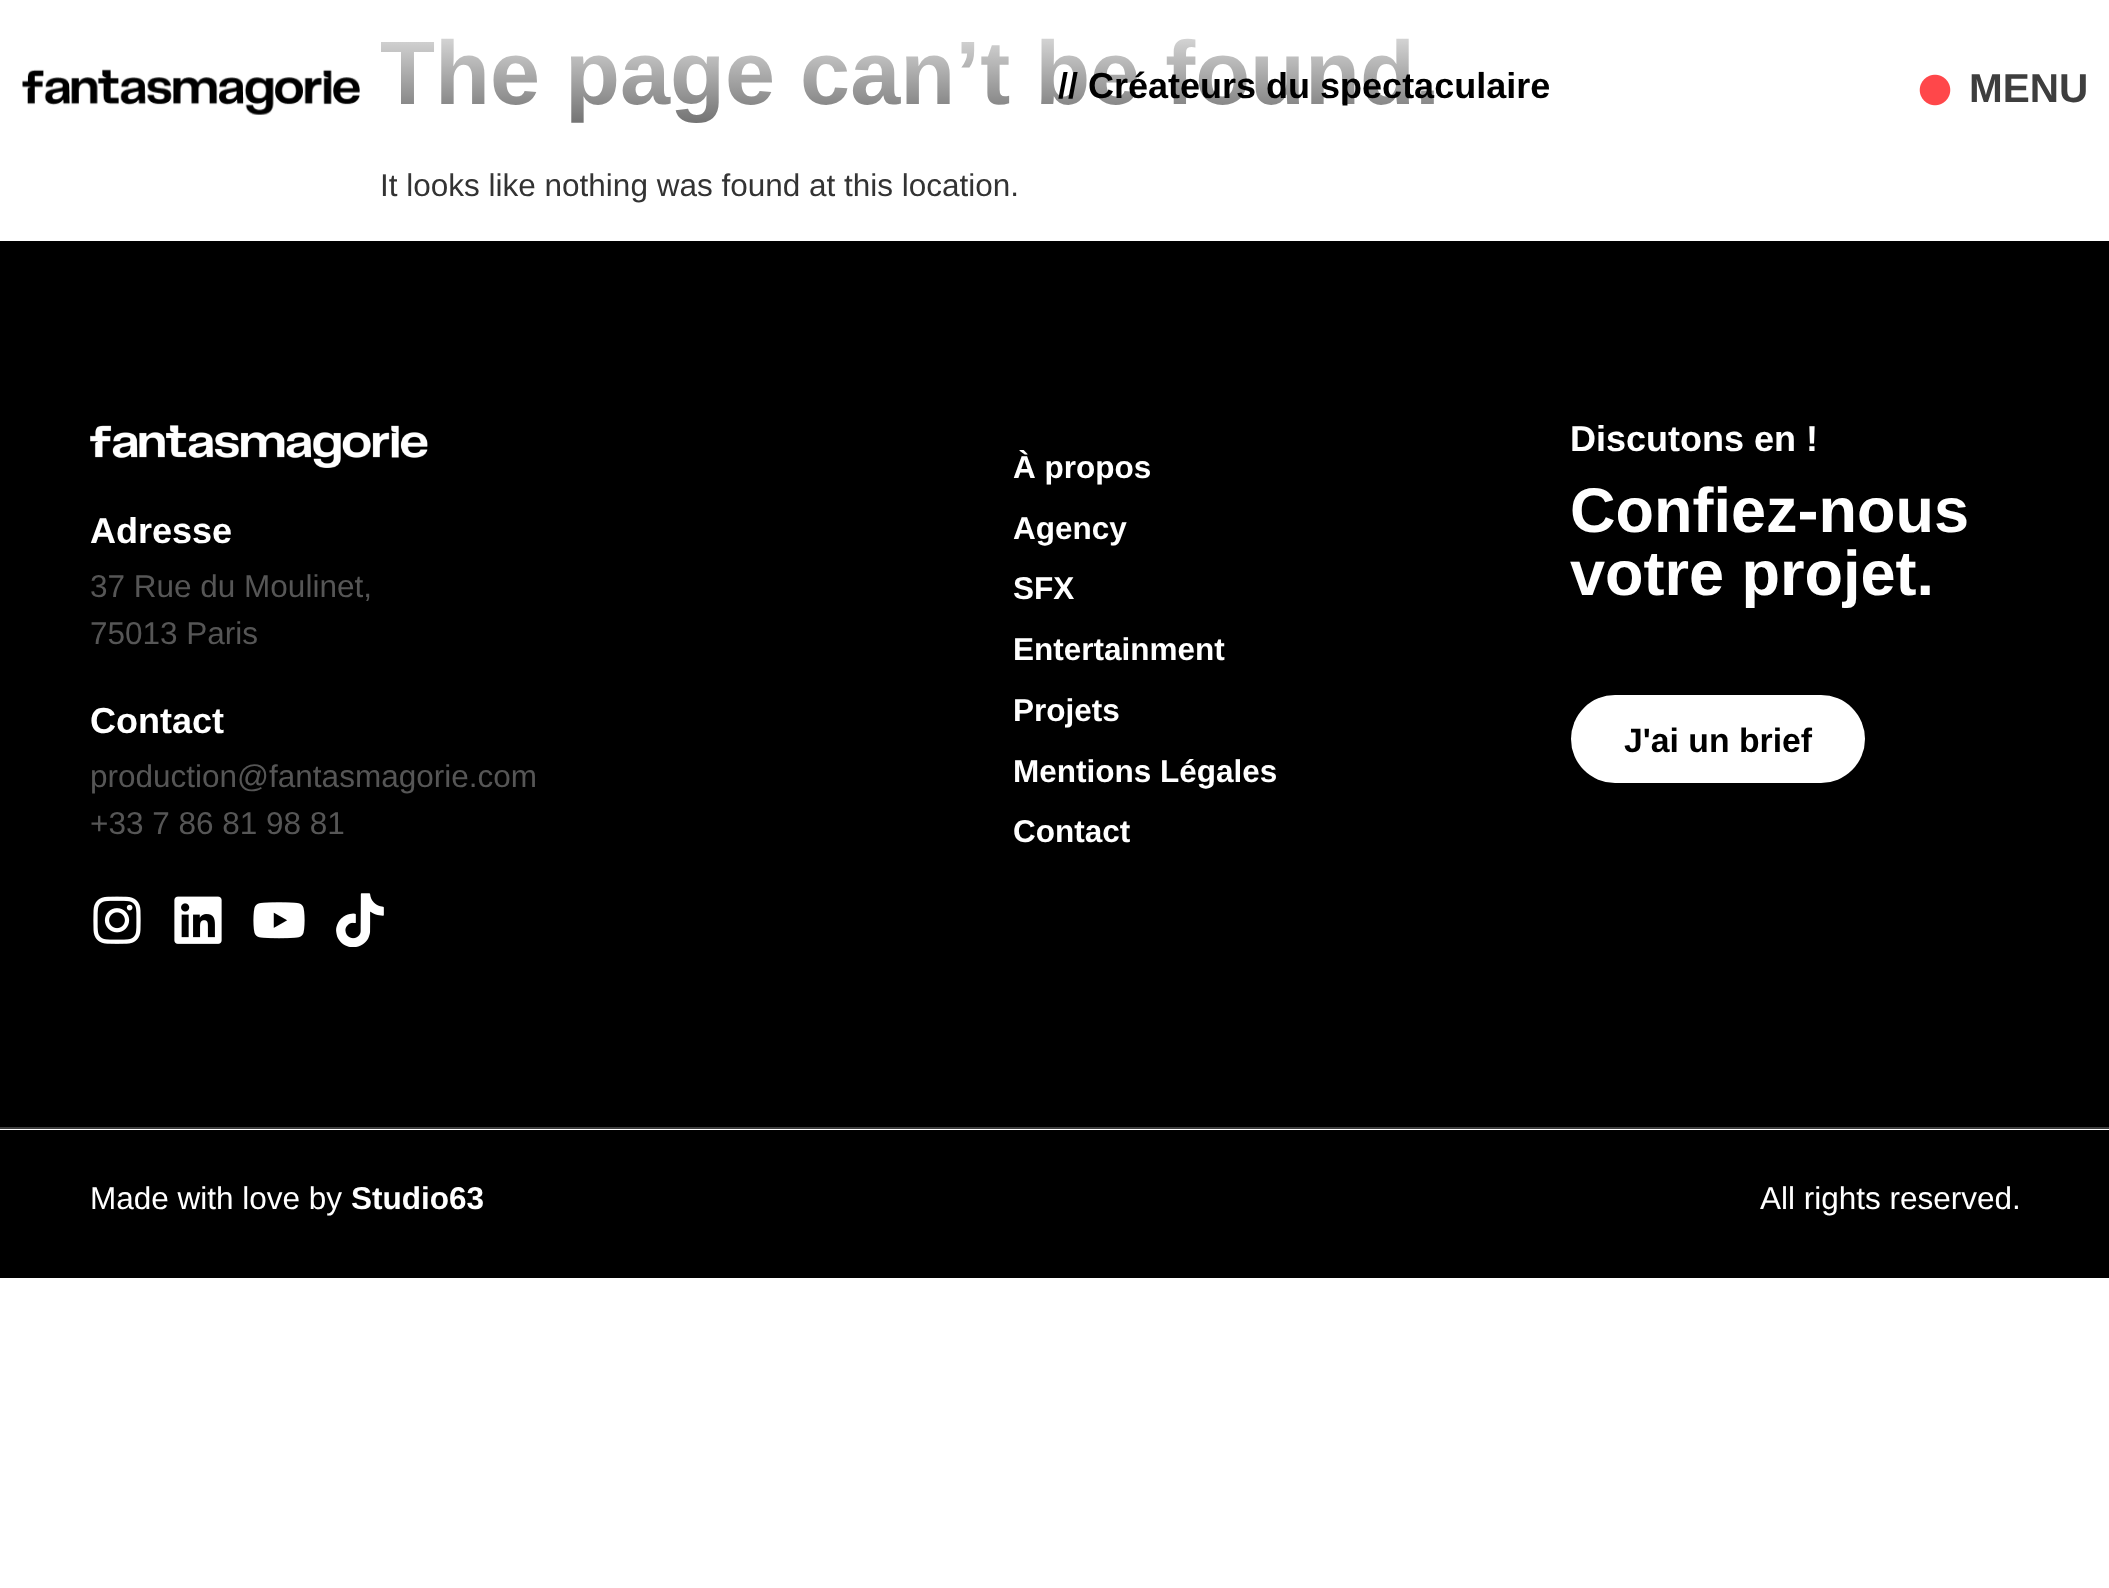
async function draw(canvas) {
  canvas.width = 2109;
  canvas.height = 1588;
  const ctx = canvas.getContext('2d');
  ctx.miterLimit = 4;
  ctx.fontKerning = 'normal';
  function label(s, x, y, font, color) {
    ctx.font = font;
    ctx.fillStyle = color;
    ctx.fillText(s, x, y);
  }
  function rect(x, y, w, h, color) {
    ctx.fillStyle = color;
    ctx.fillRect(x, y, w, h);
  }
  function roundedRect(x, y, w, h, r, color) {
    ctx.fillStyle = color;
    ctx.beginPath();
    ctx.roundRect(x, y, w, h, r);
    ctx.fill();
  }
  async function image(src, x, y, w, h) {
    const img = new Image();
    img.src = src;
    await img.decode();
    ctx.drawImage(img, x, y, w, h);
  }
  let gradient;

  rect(0, 0, 2109, 1588, '#fff');
  label('The page can’t be found.', 380, 104, 'bold 90px Liberation Sans', '#333');
  label('It looks like nothing was found at this location.', 380, 196, '31.5px Liberation Sans', '#333');
  gradient = ctx.createLinearGradient(1055, 0, 1055, 180);
  gradient.addColorStop(0, '#fff');
  gradient.addColorStop(1, '#ffffff00');
  ctx.fillStyle = gradient;
  ctx.fillRect(381, 38, 1054, 138);
  await image('assets/img1.png', 22, 69, 338, 46);
  label('// Créateurs du spectaculaire', 1058, 98, 'bold 36px Liberation Sans', '#000');
  await image('assets/img2.png', 1919, 74, 32, 32);
  label('MENU', 1969, 102, 'bold 40.5px Liberation Sans', '#3e3e3e');
  rect(0, 241, 2109, 886, '#000');
  await image('assets/img3.png', 90, 425, 338, 43);
  label('Adresse', 90, 543, 'bold 36px Liberation Sans', '#fff');
  label('37 Rue du Moulinet,', 90, 597, '31.5px Liberation Sans', '#565656');
  label('75013 Paris', 90, 644, '31.5px Liberation Sans', '#565656');
  label('Contact', 90, 733, 'bold 36px Liberation Sans', '#fff');
  label('production@fantasmagorie.com', 90, 787, '31.5px Liberation Sans', '#565656');
  label('+33 7 86 81 98 81', 90, 834, '31.5px Liberation Sans', '#565656');
  await image('assets/img4.png', 93, 896, 48, 48);
  await image('assets/img5.png', 174, 896, 48, 48);
  await image('assets/img6.png', 253, 902, 52, 37);
  await image('assets/img7.png', 336, 893, 48, 54);
  label('À propos', 1013, 478, 'bold 31.5px Liberation Sans', '#fff');
  label('Agency', 1013, 539, 'bold 31.5px Liberation Sans', '#fff');
  label('SFX', 1013, 599, 'bold 31.5px Liberation Sans', '#fff');
  label('Entertainment', 1013, 660, 'bold 31.5px Liberation Sans', '#fff');
  label('Projets', 1013, 721, 'bold 31.5px Liberation Sans', '#fff');
  label('Mentions Légales', 1013, 782, 'bold 31.5px Liberation Sans', '#fff');
  label('Contact', 1013, 842, 'bold 31.5px Liberation Sans', '#fff');
  label('Discutons en !', 1570, 451, 'bold 36px Liberation Sans', '#fff');
  label('Confiez-nous', 1570, 532, 'bold 63px Liberation Sans', '#fff');
  label('votre projet.', 1570, 595, 'bold 63px Liberation Sans', '#fff');
  roundedRect(1571, 695, 294, 88, 44, '#fff');
  label('J\'ai un brief', 1624, 752, 'bold 33.75px Liberation Sans', '#000');
  rect(0, 1130, 2109, 148, '#000');
  rect(0, 1127, 2109, 2, '#3e3e3e');
  label('Made with love by', 90, 1209, '31.5px Liberation Sans', '#fff');
  label('Studio63', 351, 1209, 'bold 31.5px Liberation Sans', '#fff');
  label('All rights reserved.', 1760, 1209, '31.5px Liberation Sans', '#fff');
}

draw(document.querySelector('canvas'));
